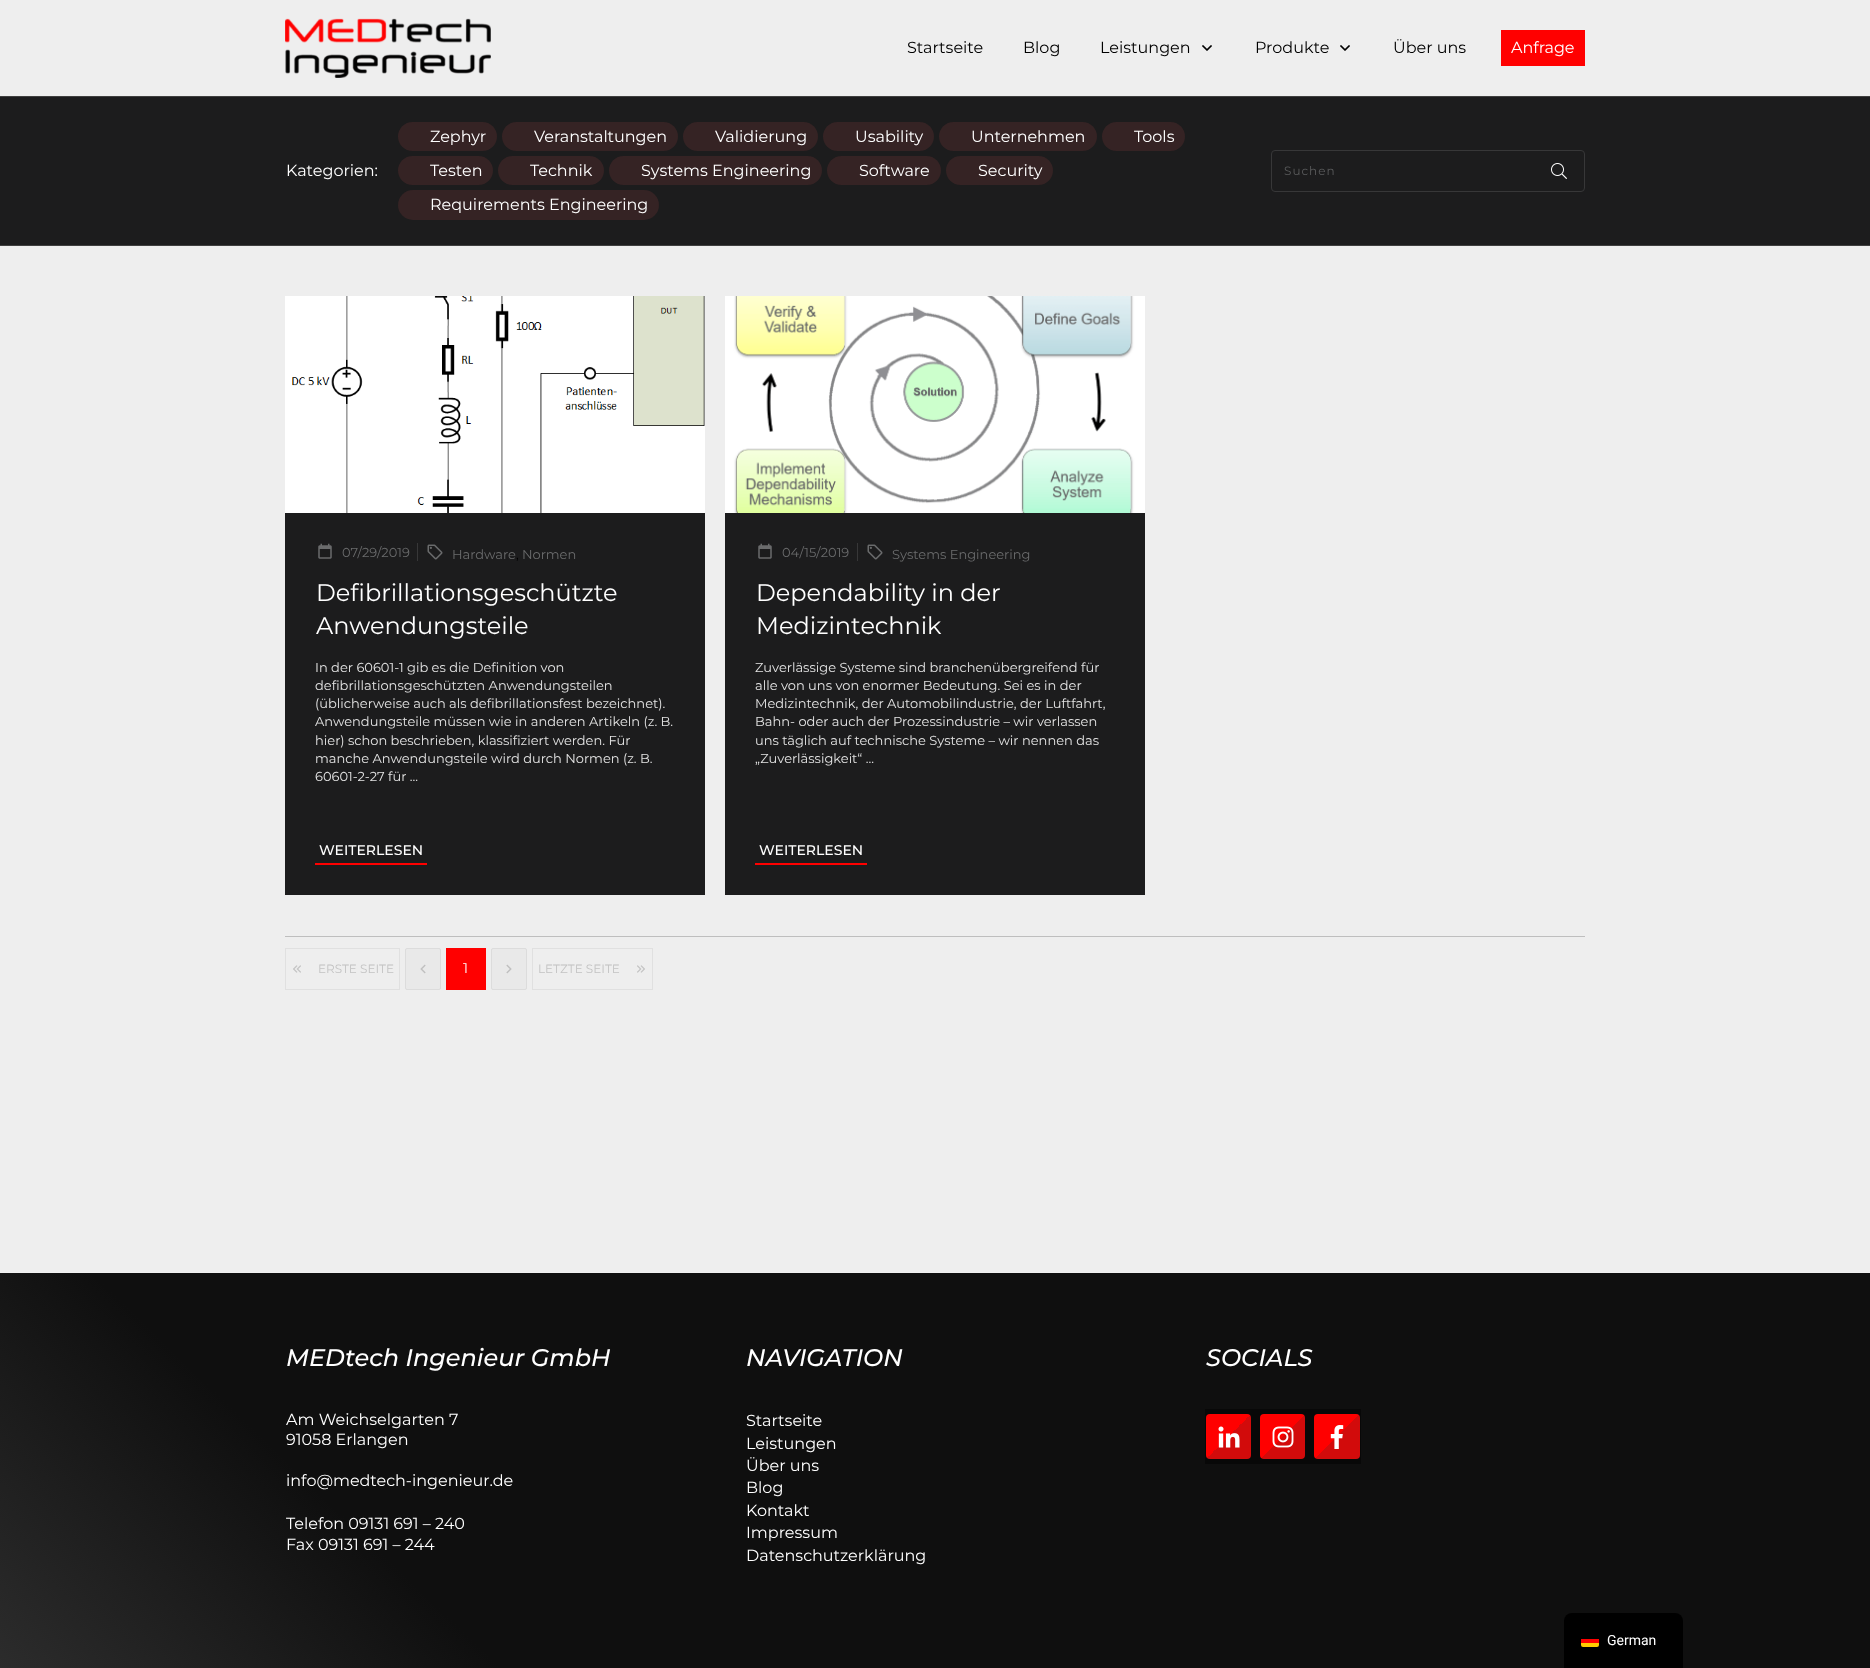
async function draw(canvas) {
  canvas.width = 1870;
  canvas.height = 1668;
  const ctx = canvas.getContext('2d');
  ctx.miterLimit = 4;
  ctx.fontKerning = 'normal';
  function label(s, x, y, font, color) {
    ctx.font = font;
    ctx.fillStyle = color;
    ctx.fillText(s, x, y);
  }
  function rect(x, y, w, h, color) {
    ctx.fillStyle = color;
    ctx.fillRect(x, y, w, h);
  }
  function roundedRect(x, y, w, h, r, color) {
    ctx.fillStyle = color;
    ctx.beginPath();
    ctx.roundRect(x, y, w, h, r);
    ctx.fill();
  }
  async function image(src, x, y, w, h) {
    const img = new Image();
    img.src = src;
    await img.decode();
    ctx.drawImage(img, x, y, w, h);
  }
  let gradient;

  rect(0, 0, 1870, 1668, '#eee');
  await image('assets/img1.png', 285, 18, 206, 60);
  label('Startseite', 907, 53, '16px Montserrat', '#000');
  label('Blog', 1023, 53, '16px Montserrat', '#000');
  label('Leistungen', 1100, 53, '16px Montserrat', '#000');
  await image('assets/img2.png', 1202, 45, 10, 6);
  label('Produkte', 1255, 53, '16px Montserrat', '#000');
  await image('assets/img2.png', 1340, 45, 10, 6);
  label('Über uns', 1393, 53, '16px Montserrat', '#000');
  rect(1501, 30, 84, 36, '#f00');
  label('Anfrage', 1511, 53, '16px Montserrat', '#fff');
  rect(0, 97, 1870, 148, '#1c1c1d');
  rect(0, 96, 1870, 1, '#3f3f3f');
  rect(0, 245, 1870, 1, '#3f3f3f');
  label('Kategorien:', 286, 176, '16px Montserrat', '#fff');
  roundedRect(398, 122, 99, 29, 14.5, '#352324');
  label('Zephyr', 430, 142, '16px Montserrat', '#fff');
  roundedRect(502, 122, 176, 29, 14.5, '#352324');
  label('Veranstaltungen', 534, 142, '16px Montserrat', '#fff');
  roundedRect(683, 122, 135, 29, 14.5, '#352324');
  label('Validierung', 715, 142, '16px Montserrat', '#fff');
  roundedRect(823, 122, 111, 29, 14.5, '#352324');
  label('Usability', 855, 142, '16px Montserrat', '#fff');
  roundedRect(939, 122, 158, 29, 14.5, '#352324');
  label('Unternehmen', 971, 142, '16px Montserrat', '#fff');
  roundedRect(1102, 122, 83, 29, 14.5, '#352324');
  label('Tools', 1134, 142, '16px Montserrat', '#fff');
  roundedRect(398, 156, 95, 29, 14.5, '#352324');
  label('Testen', 430, 176, '16px Montserrat', '#fff');
  roundedRect(498, 156, 106, 29, 14.5, '#352324');
  label('Technik', 530, 176, '16px Montserrat', '#fff');
  roundedRect(609, 156, 213, 29, 14.5, '#352324');
  label('Systems Engineering', 641, 176, '16px Montserrat', '#fff');
  roundedRect(827, 156, 114, 29, 14.5, '#352324');
  label('Software', 859, 176, '16px Montserrat', '#fff');
  roundedRect(946, 156, 107, 29, 14.5, '#352324');
  label('Security', 978, 176, '16px Montserrat', '#fff');
  roundedRect(398, 190, 261, 30, 15, '#352324');
  label('Requirements Engineering', 430, 210, '16px Montserrat', '#fff');
  ctx.beginPath();
  ctx.roundRect(1271.5, 150.5, 313, 41, 3.5);
  ctx.strokeStyle = '#373738';
  ctx.stroke();
  ctx.letterSpacing = '1px';
  label('Suchen', 1284, 175, '12px Montserrat', '#5a5b5c');
  await image('assets/img3.png', 1551, 163, 16, 16);
  rect(285, 513, 420, 382, '#1c1c1d');
  await image('assets/img4.png', 285, 296, 420, 217);
  await image('assets/img5.png', 318, 543, 14, 16);
  ctx.letterSpacing = '0px';
  label('07/29/2019', 342, 557, '13px Montserrat', '#6a6b6c');
  rect(417, 543, 1, 18, '#373738');
  await image('assets/img6.png', 427, 544, 16, 16);
  label('Hardware', 452, 559, '13px Montserrat', '#6a6b6c');
  label(',', 516, 559, '13px Montserrat', '#000');
  label('Normen', 522, 559, '13px Montserrat', '#6a6b6c');
  label('Defibrillationsgeschützte', 316, 601, '24px Montserrat', '#fff');
  label('Anwendungsteile', 316, 634, '24px Montserrat', '#fff');
  label('In der 60601-1 gib es die Definition von', 315, 672, '13px Montserrat', '#e4e4e4');
  label('defibrillationsgeschützten Anwendungsteilen', 315, 690, '13px Montserrat', '#e4e4e4');
  label('(üblicherweise auch als defibrillationsfest bezeichnet).', 315, 708, '13px Montserrat', '#e4e4e4');
  label('Anwendungsteile müssen wie in anderen Artikeln (z. B.', 315, 726, '13px Montserrat', '#e4e4e4');
  label('hier) schon beschrieben, klassifiziert werden. Für', 315, 745, '13px Montserrat', '#e4e4e4');
  label('manche Anwendungsteile wird durch Normen (z. B.', 315, 763, '13px Montserrat', '#e4e4e4');
  label('60601-2-27 für ...', 315, 781, '13px Montserrat', '#e4e4e4');
  rect(315, 863, 112, 2, '#f00');
  label('WEITERLESEN', 319, 855, '500 14px Montserrat', '#fff');
  rect(725, 513, 420, 382, '#1c1c1d');
  await image('assets/img7.png', 725, 296, 420, 217);
  await image('assets/img5.png', 758, 543, 14, 16);
  label('04/15/2019', 782, 557, '13px Montserrat', '#6a6b6c');
  rect(857, 543, 1, 18, '#373738');
  await image('assets/img6.png', 867, 544, 16, 16);
  label('Systems Engineering', 892, 559, '13px Montserrat', '#6a6b6c');
  label('Dependability in der', 756, 601, '24px Montserrat', '#fff');
  label('Medizintechnik', 756, 634, '24px Montserrat', '#fff');
  label('Zuverlässige Systeme sind branchenübergreifend für', 755, 672, '13px Montserrat', '#e4e4e4');
  label('alle von uns von enormer Bedeutung. Sei es in der', 755, 690, '13px Montserrat', '#e4e4e4');
  label('Medizintechnik, der Automobilindustrie, der Luftfahrt,', 755, 708, '13px Montserrat', '#e4e4e4');
  label('Bahn- oder auch der Prozessindustrie – wir verlassen', 755, 726, '13px Montserrat', '#e4e4e4');
  label('uns täglich auf technische Systeme – wir nennen das', 755, 745, '13px Montserrat', '#e4e4e4');
  label('„Zuverlässigkeit“ ...', 755, 763, '13px Montserrat', '#e4e4e4');
  rect(755, 863, 112, 2, '#f00');
  label('WEITERLESEN', 759, 855, '500 14px Montserrat', '#fff');
  rect(285, 936, 1300, 1, '#bebebe');
  ctx.strokeStyle = '#e0e0e0';
  ctx.strokeRect(285.5, 948.5, 114, 41);
  await image('assets/img8.png', 293, 965, 8, 8);
  label('ERSTE SEITE', 318, 973, '12px Montserrat', '#c3c3c3');
  ctx.fillStyle = '#e9e9e9';
  ctx.beginPath();
  ctx.roundRect(405.5, 948.5, 35, 41, 1.5);
  ctx.fill();
  ctx.strokeStyle = '#dcdcdc';
  ctx.stroke();
  await image('assets/img9.png', 420, 964, 6, 10);
  rect(446, 948, 40, 42, '#f00');
  label('1', 463, 973, '14px Montserrat', '#fff');
  ctx.fillStyle = '#e9e9e9';
  ctx.beginPath();
  ctx.roundRect(491.5, 948.5, 35, 41, 1.5);
  ctx.fill();
  ctx.stroke();
  await image('assets/img10.png', 506, 964, 6, 10);
  ctx.strokeStyle = '#e0e0e0';
  ctx.strokeRect(532.5, 948.5, 120, 41);
  label('LETZTE SEITE', 538, 973, '12px Montserrat', '#c3c3c3');
  await image('assets/img11.png', 637, 965, 8, 8);
  rect(0, 1272, 1870, 1, '#f1f1f1');
  gradient = ctx.createLinearGradient(385, 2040, 1485, 901);
  gradient.addColorStop(0, '#2c2c2c');
  gradient.addColorStop(0.22, '#0f0f0f');
  ctx.fillStyle = gradient;
  ctx.fillRect(0, 1273, 1870, 395);
  label('MEDtech Ingenieur GmbH', 286, 1366, 'italic 500 24px Montserrat', '#fff');
  label('Am Weichselgarten 7', 286, 1425, '16px Montserrat', '#fff');
  label('91058 Erlangen', 286, 1445, '16px Montserrat', '#fff');
  label('info@medtech-ingenieur.de', 286, 1486, '16px Montserrat', '#fff');
  label('Telefon 09131 691 – 240', 286, 1529, '16px Montserrat', '#fff');
  label('Fax 09131 691 – 244', 286, 1550, '16px Montserrat', '#fff');
  label('NAVIGATION', 746, 1366, 'italic 500 24px Montserrat', '#fff');
  label('Startseite', 746, 1426, '16px Montserrat', '#fff');
  label('Leistungen', 746, 1449, '16px Montserrat', '#fff');
  label('Über uns', 746, 1471, '16px Montserrat', '#fff');
  label('Blog', 746, 1493, '16px Montserrat', '#fff');
  label('Kontakt', 746, 1516, '16px Montserrat', '#fff');
  label('Impressum', 746, 1538, '16px Montserrat', '#fff');
  label('Datenschutzerklärung', 746, 1561, '16px Montserrat', '#fff');
  label('SOCIALS', 1206, 1366, 'italic 500 24px Montserrat', '#fff');
  rect(1205, 1409, 156, 55, '#080808');
  gradient = ctx.createLinearGradient(1206, 1414, 1251, 1459);
  gradient.addColorStop(0.5, '#f00');
  gradient.addColorStop(0.5, '#d20b0b');
  ctx.fillStyle = gradient;
  ctx.beginPath();
  ctx.roundRect(1206, 1414, 45, 45, 4);
  ctx.fill();
  await image('assets/img12.png', 1218, 1426, 22, 22);
  gradient = ctx.createLinearGradient(1260, 1414, 1305, 1459);
  gradient.addColorStop(0.5, '#f00');
  gradient.addColorStop(0.5, '#d20b0b');
  ctx.fillStyle = gradient;
  ctx.beginPath();
  ctx.roundRect(1260, 1414, 45, 45, 4);
  ctx.fill();
  await image('assets/img13.png', 1272, 1426, 22, 22);
  gradient = ctx.createLinearGradient(1315, 1414, 1359, 1459);
  gradient.addColorStop(0.5, '#f00');
  gradient.addColorStop(0.5, '#d20b0b');
  ctx.fillStyle = gradient;
  ctx.beginPath();
  ctx.roundRect(1314, 1414, 46, 45, 4);
  ctx.fill();
  await image('assets/img14.png', 1330, 1425, 14, 24);
  ctx.fillStyle = '#000';
  ctx.beginPath();
  ctx.roundRect(1564, 1613, 119, 55, [8, 8, 0, 0]);
  ctx.fill();
  ctx.fillStyle = '#fc0';
  ctx.beginPath();
  ctx.roundRect(1581, 1643, 18, 4, [0, 0, 2, 2]);
  ctx.fill();
  rect(1581, 1639, 18, 4, '#f00');
  label('German', 1607, 1645, '14px Roboto', '#fff');
}

draw(document.querySelector('canvas'));
